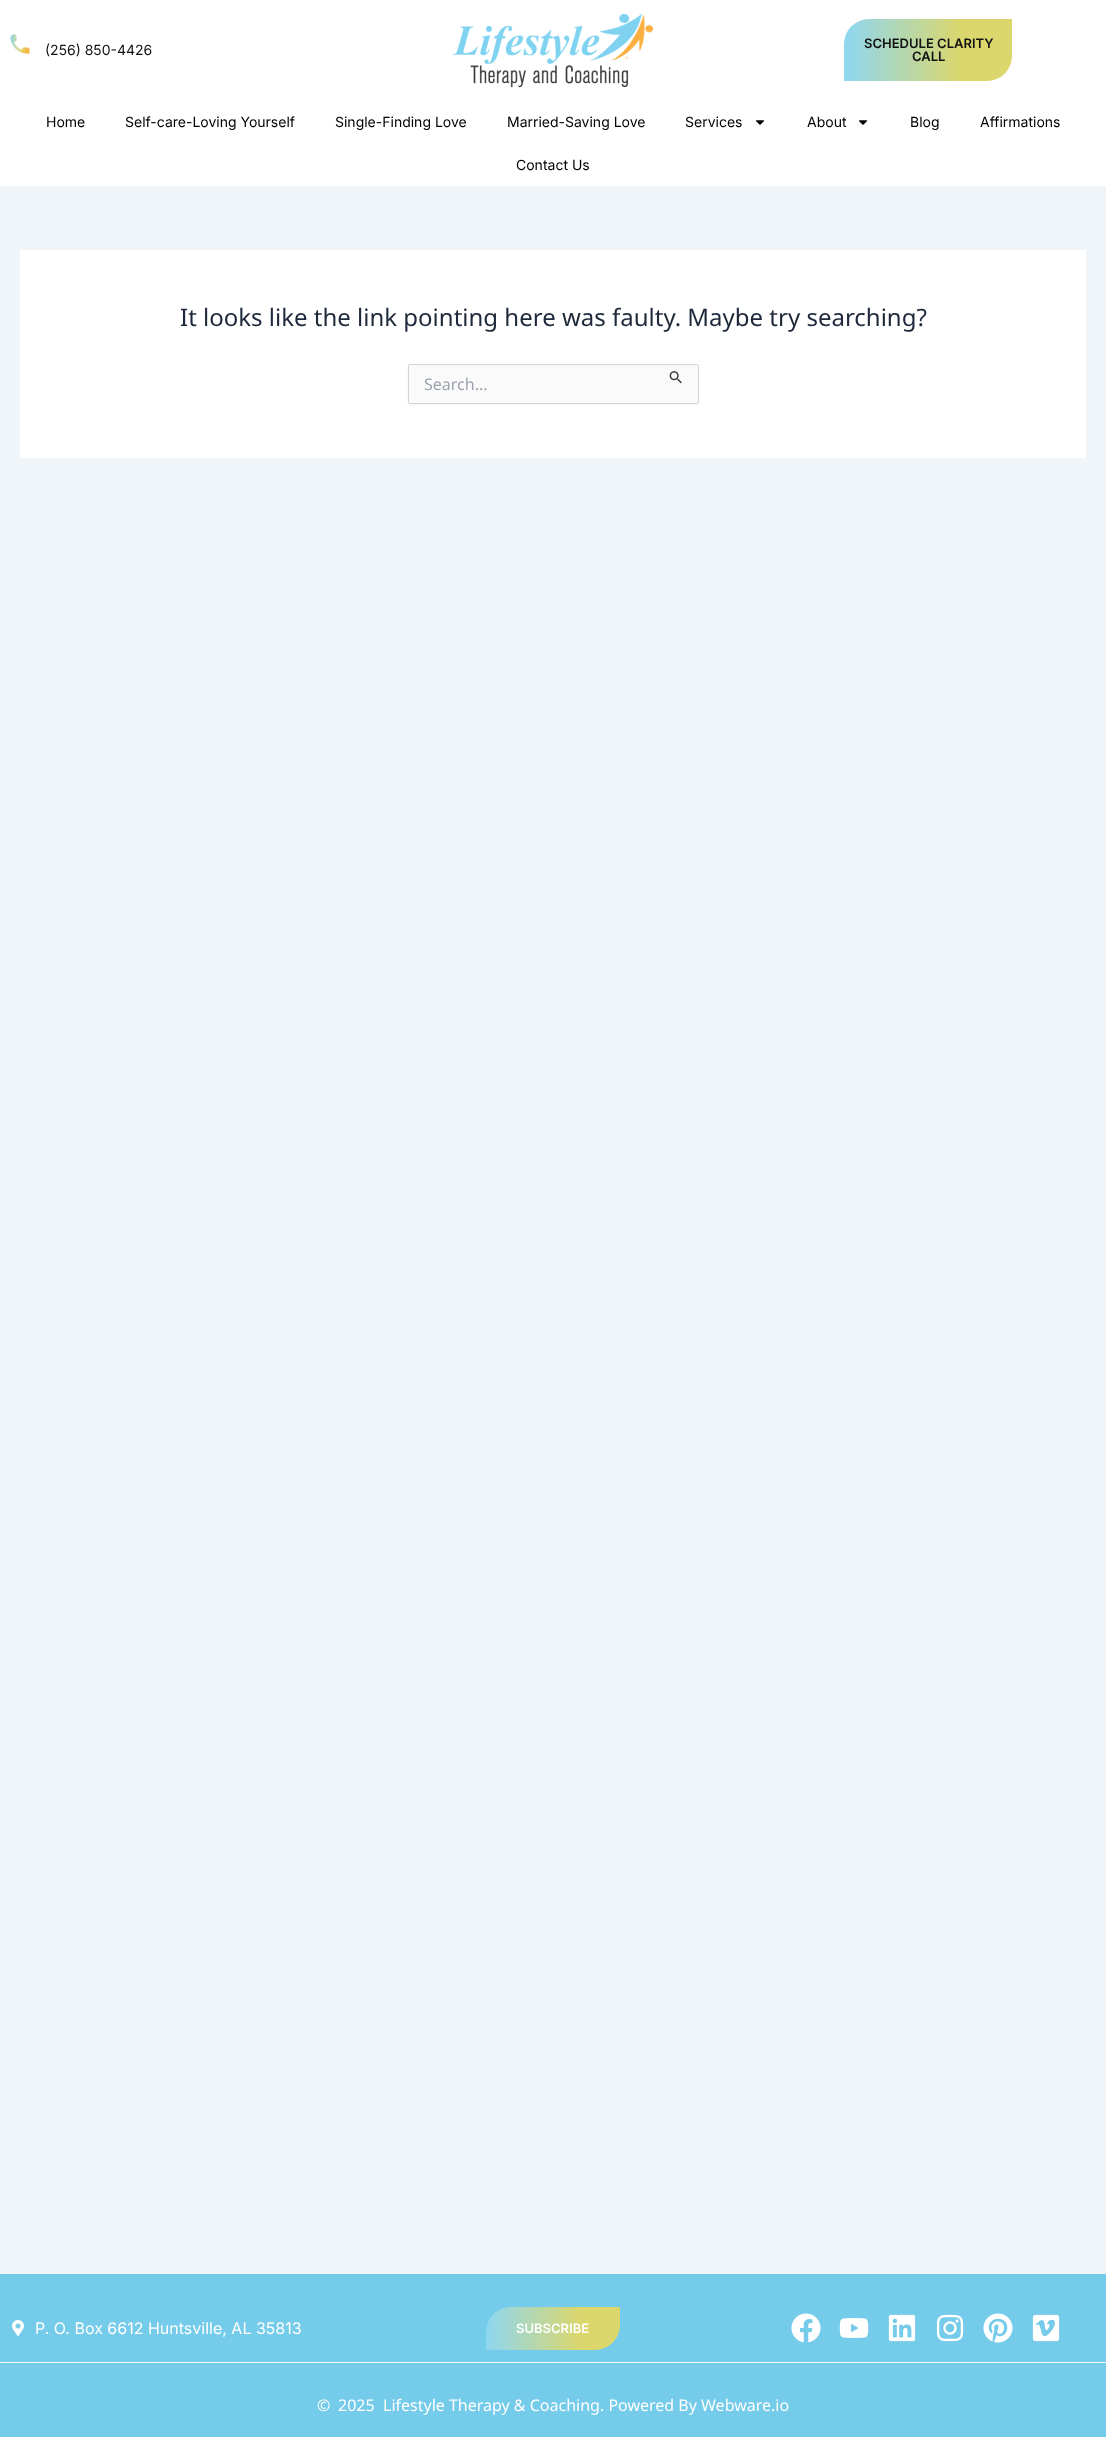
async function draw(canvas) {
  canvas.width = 1106;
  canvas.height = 2437;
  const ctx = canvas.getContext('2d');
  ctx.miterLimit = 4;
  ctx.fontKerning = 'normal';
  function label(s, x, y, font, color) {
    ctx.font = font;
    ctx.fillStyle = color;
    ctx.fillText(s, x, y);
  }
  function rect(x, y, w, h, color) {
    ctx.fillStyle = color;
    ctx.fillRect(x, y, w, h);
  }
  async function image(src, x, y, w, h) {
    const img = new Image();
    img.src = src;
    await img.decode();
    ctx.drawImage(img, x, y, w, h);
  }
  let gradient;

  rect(0, 0, 1106, 2437, '#f0f5fa');
  rect(0, 0, 1106, 186, '#fff');
  await image('assets/img1.png', 10, 34, 20, 20);
  label('(256) 850-4426', 45, 55, '14px Inter', '#111');
  await image('assets/img2.png', 453, 13, 200, 75);
  gradient = ctx.createLinearGradient(844, 50, 1012, 50);
  gradient.addColorStop(0, '#8ed7f2');
  gradient.addColorStop(0.7, '#dbd76c');
  ctx.fillStyle = gradient;
  ctx.beginPath();
  ctx.roundRect(844, 19, 168, 62, [25, 0, 25, 0]);
  ctx.fill();
  label('SCHEDULE CLARITY', 864, 48, '600 13px Inter', '#111');
  label('CALL', 912, 61, '600 13px Inter', '#111');
  label('Home', 46, 127, '14px Inter', '#000');
  label('Self-care-Loving Yourself', 125, 127, '14px Inter', '#000');
  label('Single-Finding Love', 335, 127, '14px Inter', '#000');
  label('Married-Saving Love', 507, 127, '14px Inter', '#000');
  label('Services', 685, 127, '14px Inter', '#000');
  await image('assets/img3.png', 756, 120, 8, 5);
  label('About', 807, 127, '14px Inter', '#000');
  await image('assets/img3.png', 859, 120, 8, 5);
  label('Blog', 910, 127, '14px Inter', '#000');
  label('Affirmations', 980, 127, '14px Inter', '#000');
  label('Contact Us', 516, 170, '14px Inter', '#000');
  rect(20, 250, 1066, 208, '#fff');
  label('It looks like the link pointing here was faulty. Maybe try searching?', 180, 326, '24px Noto Sans', '#1e293b');
  ctx.fillStyle = '#0000000d';
  ctx.filter = 'blur(1px)';
  ctx.beginPath();
  ctx.roundRect(408, 365, 291, 40, 2);
  ctx.fill();
  ctx.filter = 'none';
  ctx.fillStyle = '#fafafa';
  ctx.beginPath();
  ctx.roundRect(408.5, 364.5, 290, 39, 1.5);
  ctx.fill();
  ctx.strokeStyle = '#d1d5db';
  ctx.stroke();
  label('Search...', 424, 390, '16px Noto Sans', '#9ca3af');
  await image('assets/img4.png', 669, 371, 13, 13);
  rect(0, 2274, 1106, 163, '#74cbea');
  rect(0, 2362, 1106, 1, '#fff');
  await image('assets/img5.png', 12, 2320, 12, 16);
  label('P. O. Box 6612 Huntsville, AL 35813', 35, 2334, '16px Inter', '#fff');
  gradient = ctx.createLinearGradient(486, 2329, 620, 2329);
  gradient.addColorStop(0, '#8ed7f2');
  gradient.addColorStop(0.7, '#dbd76c');
  ctx.fillStyle = gradient;
  ctx.beginPath();
  ctx.roundRect(486, 2307, 134, 43, [25, 0, 25, 0]);
  ctx.fill();
  label('SUBSCRIBE', 516, 2333, '600 13px Inter', '#fff');
  await image('assets/img6.png', 791, 2313, 30, 30);
  await image('assets/img7.png', 839, 2318, 30, 20);
  await image('assets/img8.png', 888, 2314, 28, 28);
  await image('assets/img9.png', 936, 2314, 28, 28);
  await image('assets/img10.png', 983, 2313, 30, 30);
  await image('assets/img11.png', 1032, 2314, 28, 28);
  label('©', 317, 2411, '16px Noto Sans', '#fff');
  label('2025', 338, 2411, '16px Noto Sans', '#fff');
  label('Lifestyle Therapy & Coaching. Powered By Webware.io', 383, 2411, '16px Noto Sans', '#fff');
}

draw(document.querySelector('canvas'));
